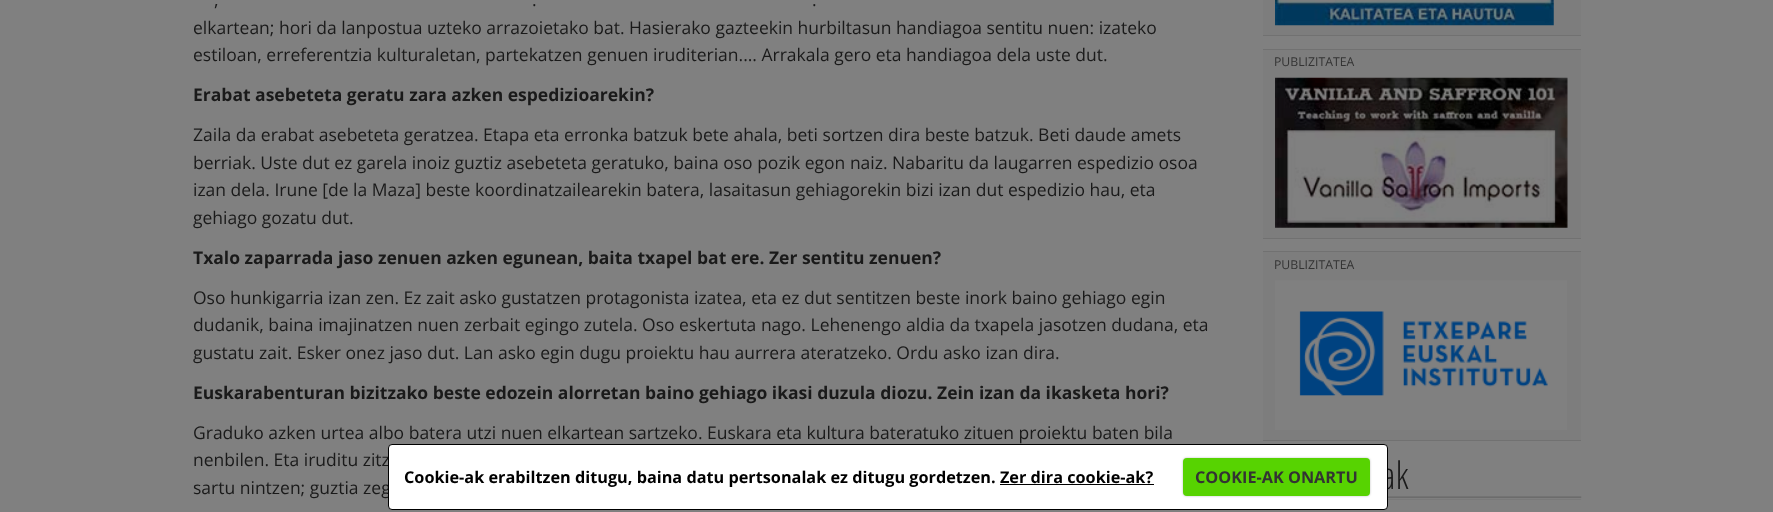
async function draw(canvas) {
  canvas.width = 1773;
  canvas.height = 512;
  const ctx = canvas.getContext('2d');
  ctx.miterLimit = 4;
  ctx.fontKerning = 'normal';
  function label(s, x, y, font, color) {
    ctx.font = font;
    ctx.fillStyle = color;
    ctx.fillText(s, x, y);
  }
  function rect(x, y, w, h, color) {
    ctx.fillStyle = color;
    ctx.fillRect(x, y, w, h);
  }
  function roundedRect(x, y, w, h, r, color) {
    ctx.fillStyle = color;
    ctx.beginPath();
    ctx.roundRect(x, y, w, h, r);
    ctx.fill();
  }
  async function image(src, x, y, w, h) {
    const img = new Image();
    img.src = src;
    await img.decode();
    ctx.drawImage(img, x, y, w, h);
  }

  rect(0, 0, 1773, 512, '#808080');
  label(',', 214, 6, '17.5px Open Sans', '#1a1a1a');
  label('.', 532, 6, '17.5px Open Sans', '#1a1a1a');
  label('.', 812, 6, '17.5px Open Sans', '#1a1a1a');
  label('elkartean; hori da lanpostua uzteko arrazoietako bat. Hasierako gazteekin hurbiltasun handiagoa sentitu nuen: izateko', 193, 34, '17.5px Open Sans', '#1a1a1a');
  label('estiloan, erreferentzia kulturaletan, partekatzen genuen iruditerian.... Arrakala gero eta handiagoa dela uste dut.', 193, 61, '17.5px Open Sans', '#1a1a1a');
  label('Erabat asebeteta geratu zara azken espedizioarekin?', 193, 101, 'bold 17.5px Open Sans', '#1a1a1a');
  label('Zaila da erabat asebeteta geratzea. Etapa eta erronka batzuk bete ahala, beti sortzen dira beste batzuk. Beti daude amets', 193, 141, '17.5px Open Sans', '#1a1a1a');
  label('berriak. Uste dut ez garela inoiz guztiz asebeteta geratuko, baina oso pozik egon naiz. Nabaritu da laugarren espedizio osoa', 193, 169, '17.5px Open Sans', '#1a1a1a');
  label('izan dela. Irune [de la Maza] beste koordinatzailearekin batera, lasaitasun gehiagorekin bizi izan dut espedizio hau, eta', 193, 196, '17.5px Open Sans', '#1a1a1a');
  label('gehiago gozatu dut.', 193, 224, '17.5px Open Sans', '#1a1a1a');
  label('Txalo zaparrada jaso zenuen azken egunean, baita txapel bat ere. Zer sentitu zenuen?', 193, 264, 'bold 17.5px Open Sans', '#1a1a1a');
  label('Oso hunkigarria izan zen. Ez zait asko gustatzen protagonista izatea, eta ez dut sentitzen beste inork baino gehiago egin', 193, 304, '17.5px Open Sans', '#1a1a1a');
  label('dudanik, baina imajinatzen nuen zerbait egingo zutela. Oso eskertuta nago. Lehenengo aldia da txapela jasotzen dudana, eta', 193, 331, '17.5px Open Sans', '#1a1a1a');
  label('gustatu zait. Esker onez jaso dut. Lan asko egin dugu proiektu hau aurrera ateratzeko. Ordu asko izan dira.', 193, 359, '17.5px Open Sans', '#1a1a1a');
  label('Euskarabenturan bizitzako beste edozein alorretan baino gehiago ikasi duzula diozu. Zein izan da ikasketa hori?', 193, 399, 'bold 17.5px Open Sans', '#1a1a1a');
  label('Graduko azken urtea albo batera utzi nuen elkartean sartzeko. Euskara eta kultura bateratuko zituen proiektu baten bila', 193, 439, '17.5px Open Sans', '#1a1a1a');
  label('nenbilen. Eta iruditu zitz', 193, 466, '17.5px Open Sans', '#1a1a1a');
  label('sartu nintzen; guztia zeg', 193, 494, '17.5px Open Sans', '#1a1a1a');
  rect(1263, 0, 318, 35, '#7d7d7d');
  rect(1263, 35, 318, 1, '#717171');
  await image('assets/img1.png', 1275, 0, 279, 26);
  rect(1263, 50, 318, 188, '#7d7d7d');
  rect(1263, 49, 318, 1, '#717171');
  rect(1263, 238, 318, 1, '#717171');
  label('PUBLIZITATEA', 1274, 66, '12.25px Open Sans', '#333');
  await image('assets/img2.png', 1275, 77, 293, 151);
  rect(1263, 252, 318, 188, '#7d7d7d');
  rect(1263, 251, 318, 1, '#717171');
  rect(1263, 440, 318, 1, '#717171');
  label('PUBLIZITATEA', 1274, 269, '12.25px Open Sans', '#333');
  await image('assets/img3.png', 1275, 280, 292, 150);
  await image('assets/img4.png', 1388, 496, 194, 4);
  label('ak', 1381, 489, '300 38px Open Sans Condensed', '#1a1a1a');
  ctx.fillStyle = '#fff';
  ctx.beginPath();
  ctx.roundRect(388.5, 444.5, 999, 65, 3.5);
  ctx.fill();
  ctx.strokeStyle = '#000';
  ctx.stroke();
  label('Cookie-ak erabiltzen ditugu, baina datu pertsonalak ez ditugu gordetzen. Zer dira cookie-ak?', 404, 483, 'bold 16.25px Open Sans', '#000');
  ctx.fillStyle = '#00000040';
  ctx.filter = 'blur(1px)';
  ctx.beginPath();
  ctx.roundRect(1183, 458, 187, 38, 4);
  ctx.fill();
  ctx.filter = 'none';
  roundedRect(1183, 458, 187, 38, 4, '#57d301');
  label('COOKIE-AK ONARTU', 1195, 483, 'bold 16.25px Open Sans', '#333');
  rect(1000, 484, 154, 1, '#000');
}

draw(document.querySelector('canvas'));
